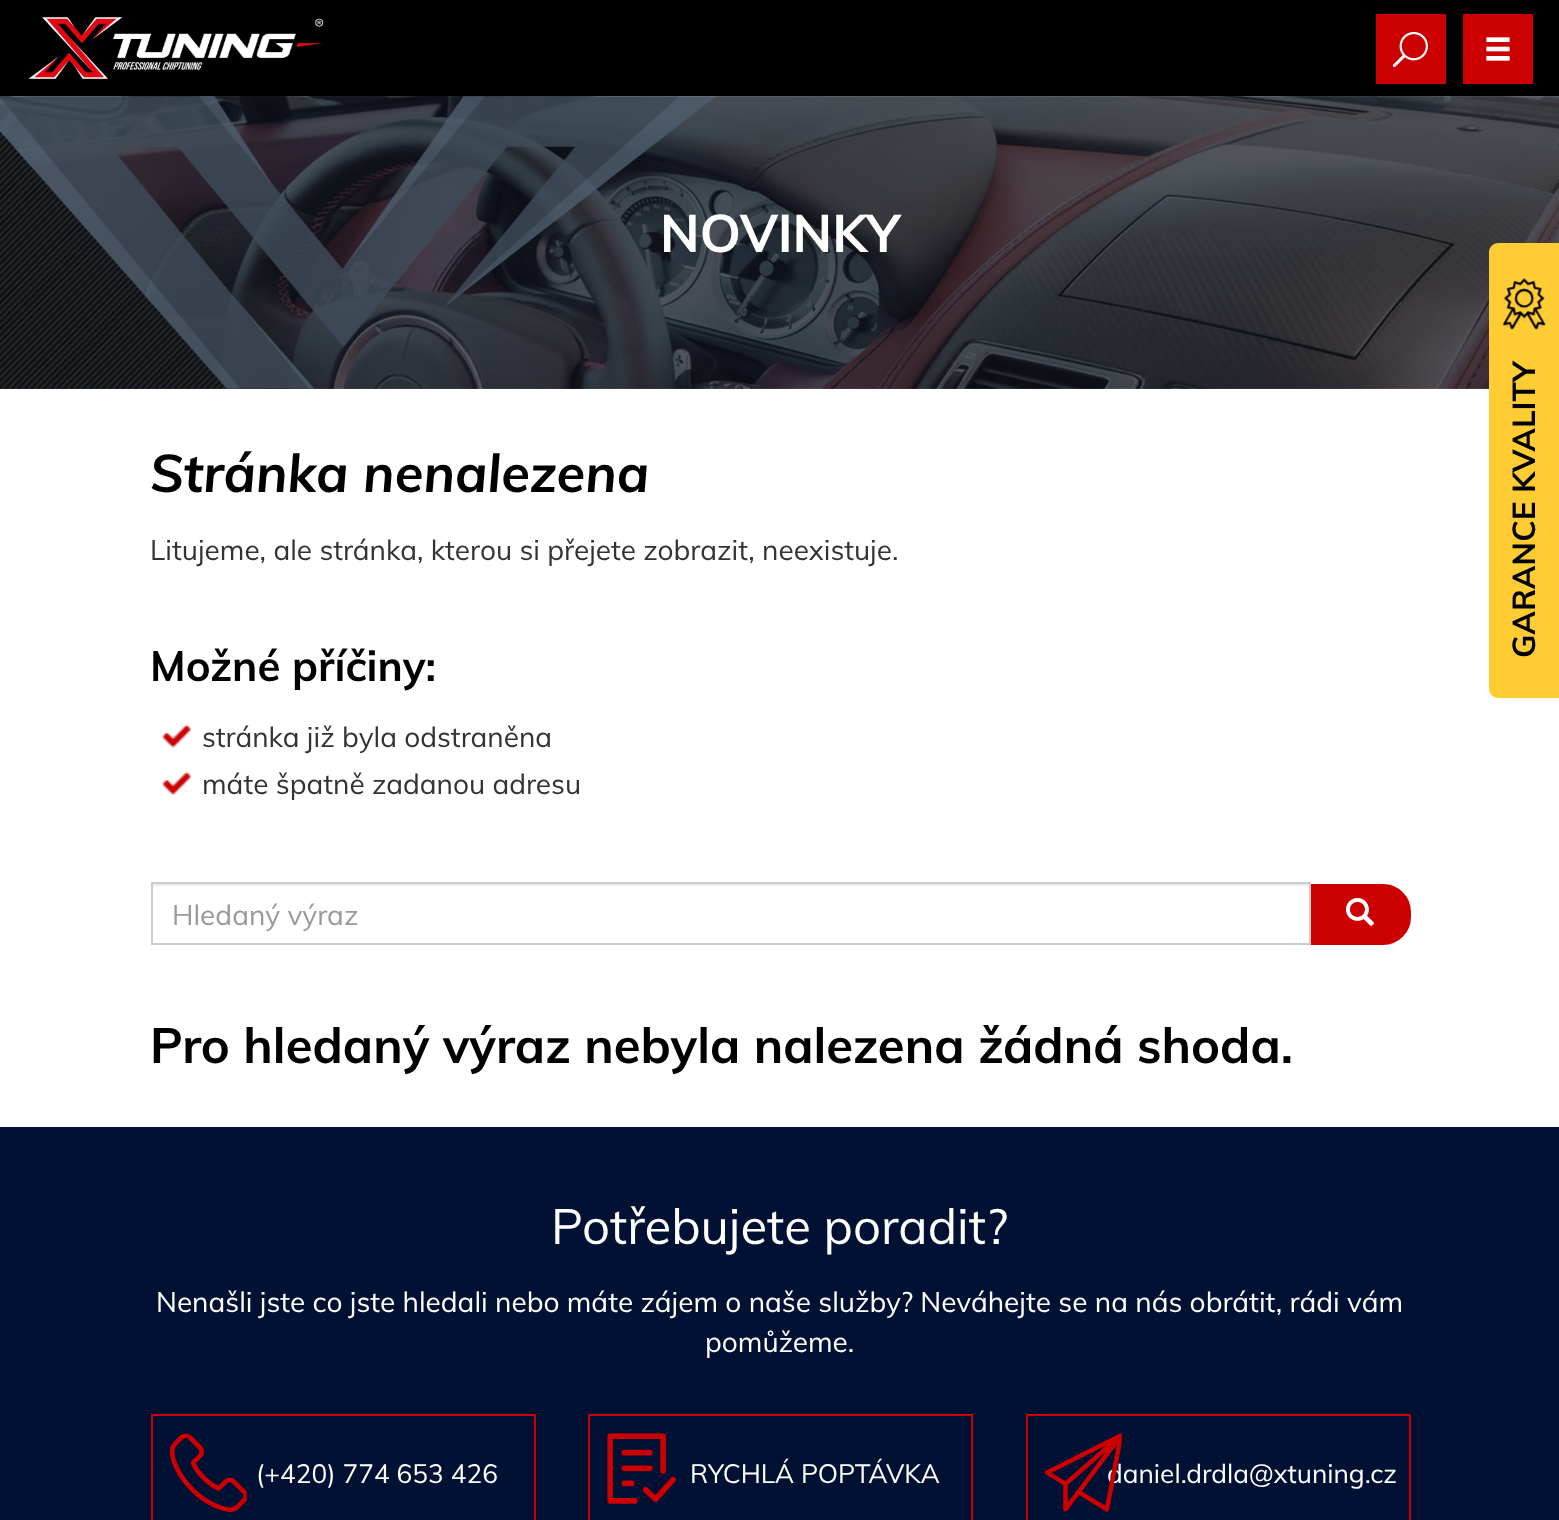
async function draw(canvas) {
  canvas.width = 1559;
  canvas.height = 1520;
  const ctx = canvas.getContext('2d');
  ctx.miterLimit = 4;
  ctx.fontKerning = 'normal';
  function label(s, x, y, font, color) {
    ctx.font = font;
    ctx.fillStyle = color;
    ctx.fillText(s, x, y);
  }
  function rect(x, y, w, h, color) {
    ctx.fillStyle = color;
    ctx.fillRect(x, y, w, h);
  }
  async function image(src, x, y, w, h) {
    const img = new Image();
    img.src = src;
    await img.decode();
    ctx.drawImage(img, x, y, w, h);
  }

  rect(0, 0, 1559, 1520, '#013');
  rect(0, 0, 1559, 96, '#000');
  await image('assets/img1.png', 28, 17, 296, 62);
  rect(1376, 14, 70, 70, '#c00');
  await image('assets/img2.png', 1392, 31, 36, 36);
  rect(1463, 14, 70, 70, '#c00');
  await image('assets/img3.png', 1486, 37, 24, 24);
  rect(0, 96, 1559, 293, '#333');
  await image('assets/img4.png', 0, 96, 1559, 293);
  await image('assets/img5.png', 0, 96, 1559, 293);
  label('NOVINKY', 660, 252, 'bold 52.5px Muli', '#fff');
  rect(0, 389, 1559, 738, '#fff');
  label('Stránka nenalezena', 150, 492, 'italic bold 52.5px Muli', '#000');
  label('Litujeme, ale stránka, kterou si přejete zobrazit, neexistuje.', 150, 560, '28px Muli', '#333');
  label('Možné příčiny:', 150, 681, 'bold 42px Muli', '#000');
  await image('assets/img6.png', 162, 724, 29, 24);
  label('stránka již byla odstraněna', 202, 747, '28px Muli', '#333');
  await image('assets/img7.png', 162, 771, 29, 24);
  label('máte špatně zadanou adresu', 202, 794, '28px Muli', '#333');
  rect(152, 884, 1157, 2, '#ececec');
  ctx.fillStyle = '#c00';
  ctx.beginPath();
  ctx.roundRect(1310, 885, 100, 59, [0, 27, 27, 0]);
  ctx.fill();
  ctx.strokeStyle = '#c00';
  ctx.lineWidth = 2;
  ctx.stroke();
  ctx.strokeStyle = '#ccc';
  ctx.strokeRect(152, 883, 1158, 61);
  label('Hledaný výraz', 172, 925, '28px Muli', '#999');
  await image('assets/img8.png', 1346, 898, 28, 28);
  label('Pro hledaný výraz nebyla nalezena žádná shoda.', 150, 1063, 'bold 49px Muli', '#000');
  ctx.fillStyle = '#fc3';
  ctx.beginPath();
  ctx.roundRect(1489, 243, 70, 455, [9, 0, 0, 9]);
  ctx.fill();
  await image('assets/img9.png', 1503, 278, 43, 52);
  ctx.font = 'bold 31.5px Muli';
  ctx.fillStyle = '#000';
  ctx.save();
  ctx.translate(1535, 658);
  ctx.rotate(-90 * Math.PI / 180);
  ctx.fillText('GARANCE KVALITY', 0, 0);
  ctx.restore();
  label('Potřebujete poradit?', 551, 1244, '49px Muli', '#fff');
  label('Nenašli jste co jste hledali nebo máte zájem o naše služby? Neváhejte se na nás obrátit, rádi vám', 156, 1312, '28px Muli', '#fff');
  label('pomůžeme.', 705, 1352, '28px Muli', '#fff');
  ctx.strokeStyle = '#c00';
  ctx.strokeRect(152, 1415, 383, 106);
  await image('assets/img10.png', 169, 1433, 78, 79);
  label('(+420) 774 653 426', 256, 1483, '26.25px Muli', '#fff');
  ctx.strokeRect(589, 1415, 383, 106);
  await image('assets/img11.png', 607, 1433, 69, 71);
  label('RYCHLÁ POPTÁVKA', 690, 1483, '26.25px Muli', '#fff');
  ctx.strokeRect(1027, 1415, 383, 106);
  label('daniel.drdla@xtuning.cz', 1107, 1483, '26.25px Muli', '#fff');
  await image('assets/img12.png', 1044, 1433, 78, 79);
}

draw(document.querySelector('canvas'));
